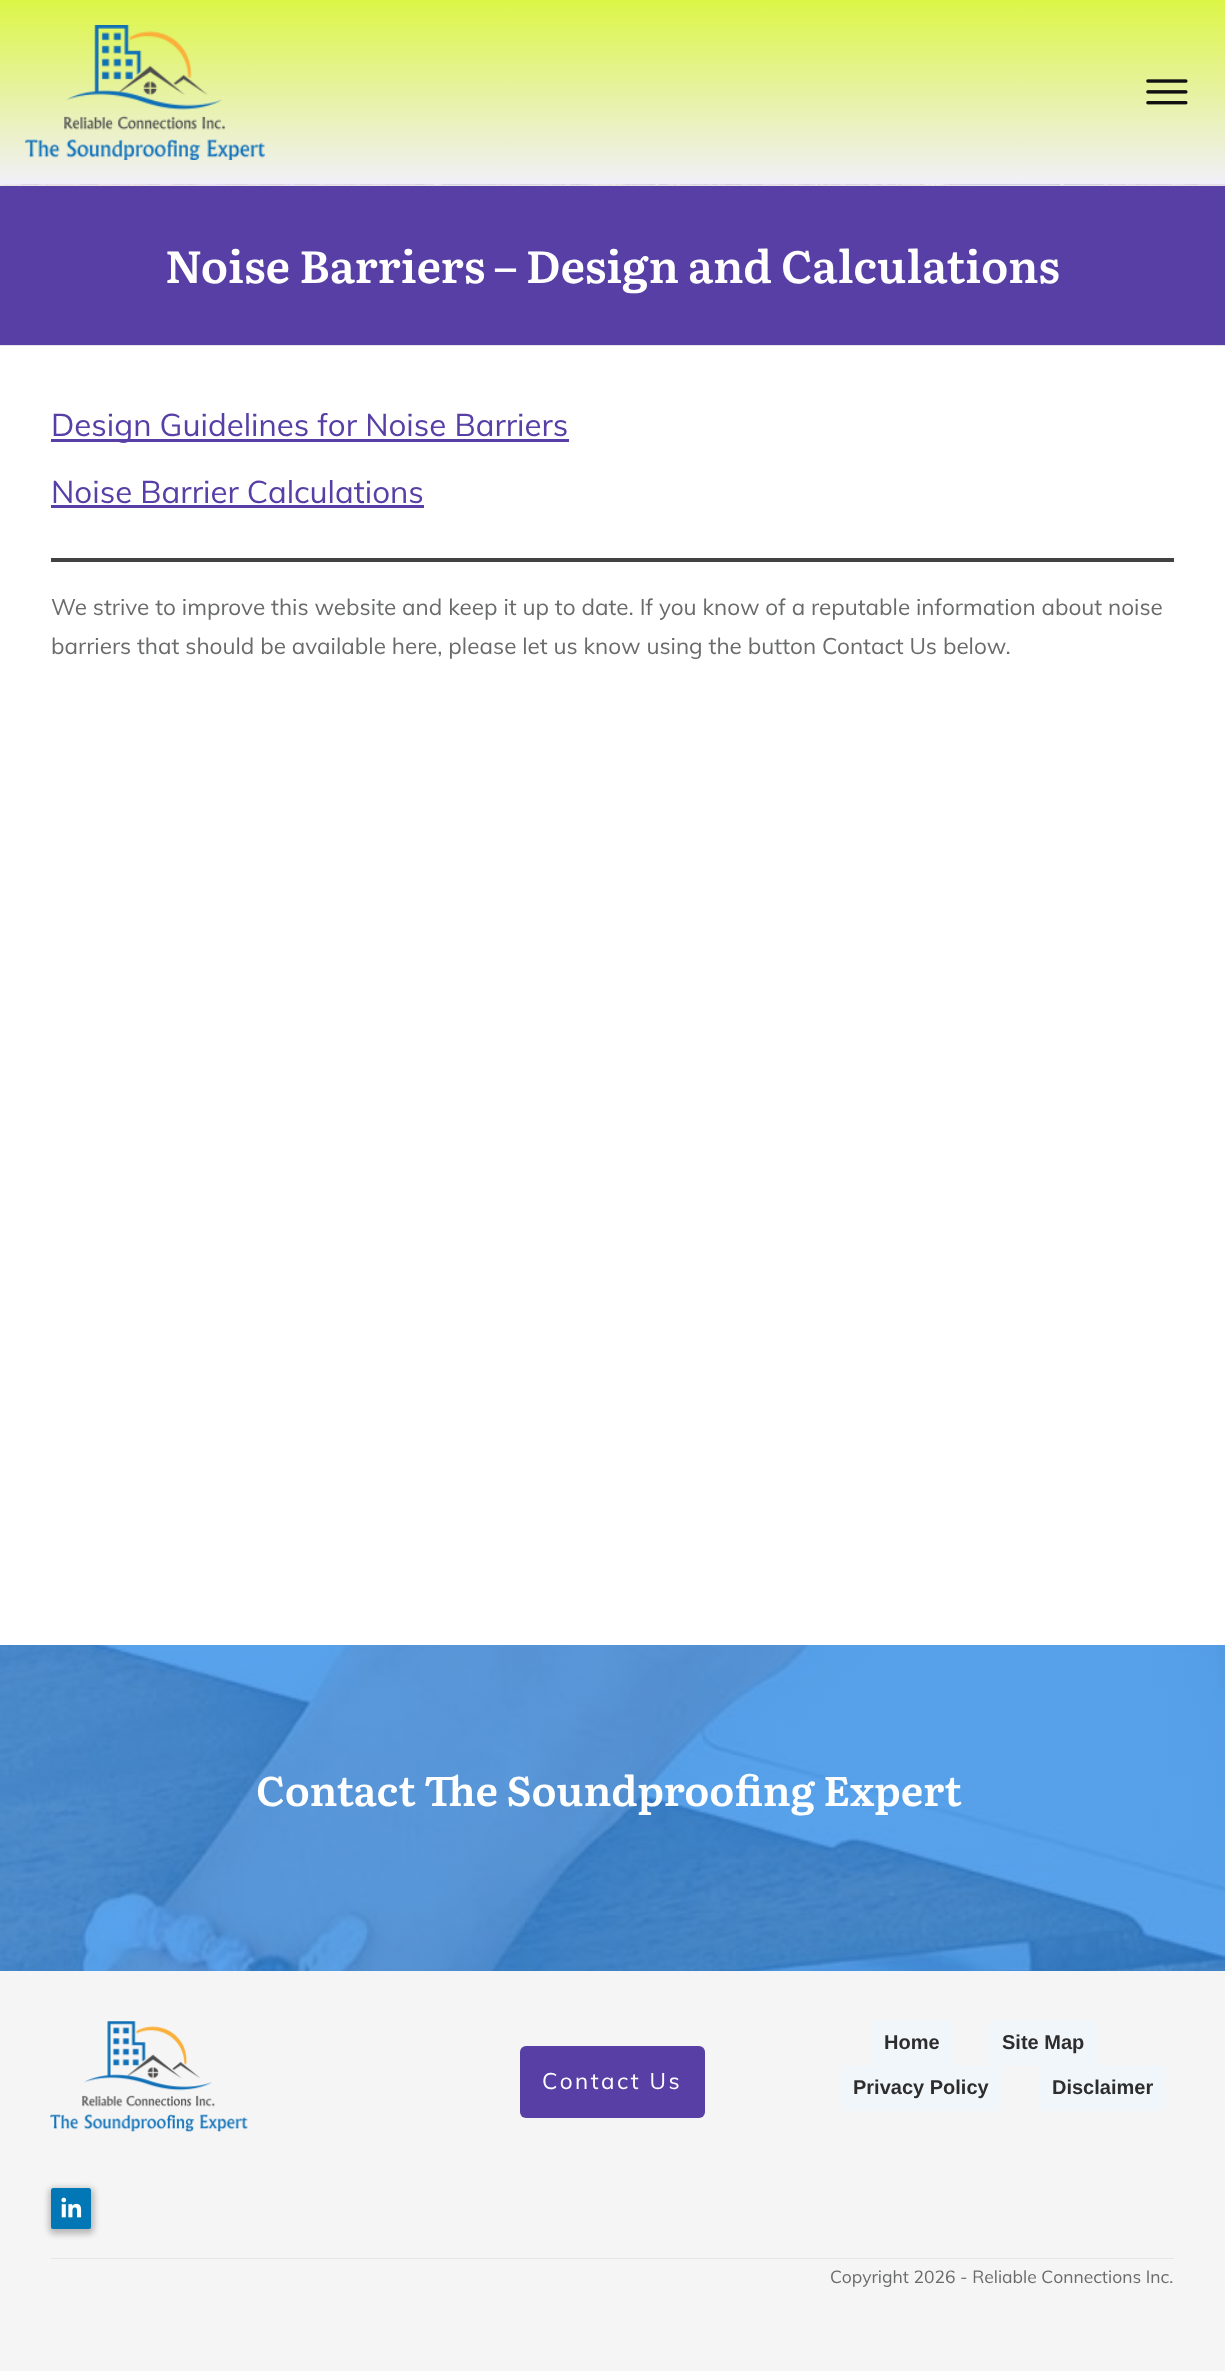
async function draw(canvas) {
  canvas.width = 1225;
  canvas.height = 2371;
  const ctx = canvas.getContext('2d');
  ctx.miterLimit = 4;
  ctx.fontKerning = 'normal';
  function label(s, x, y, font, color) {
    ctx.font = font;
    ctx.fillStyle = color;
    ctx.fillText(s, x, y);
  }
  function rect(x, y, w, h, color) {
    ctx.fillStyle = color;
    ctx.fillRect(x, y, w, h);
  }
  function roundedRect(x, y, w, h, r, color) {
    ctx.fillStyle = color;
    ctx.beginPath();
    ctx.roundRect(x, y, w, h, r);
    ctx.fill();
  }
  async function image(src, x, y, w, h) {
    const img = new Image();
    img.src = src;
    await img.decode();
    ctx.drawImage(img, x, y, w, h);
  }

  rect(0, 0, 1225, 2371, '#fff');
  await image('assets/img1.png', 0, 0, 1225, 185);
  await image('assets/img2.png', 25, 25, 240, 135);
  await image('assets/img3.png', 1146, 79, 42, 26);
  rect(0, 186, 1225, 159, '#573fa6');
  rect(0, 185, 1225, 1, '#e6e6e6');
  rect(0, 345, 1225, 1, '#e6e6e6');
  label('Noise Barriers – Design and Calculations', 165, 283, '600 45px Literata', '#fff');
  rect(51, 439, 518, 3, '#573fa6');
  label('Design Guidelines for Noise Barriers', 51, 436, '31.25px Muli', '#573fa6');
  label('Noise Barrier Calculations', 51, 503, '31.25px Muli', '#573fa6');
  rect(51, 505, 373, 3, '#573fa6');
  rect(51, 558, 1123, 4, '#424242');
  label('We strive to improve this website and keep it up to date. If you know of a reputable information about noise', 51, 615, '22.5px Muli', '#6a6b6c');
  label('barriers that should be available here, please let us know using the button Contact Us below.', 51, 654, '22.5px Muli', '#6a6b6c');
  await image('assets/img4.png', 0, 1645, 1225, 326);
  label('Contact The Soundproofing Expert', 256, 1806, '600 41.25px Literata', '#fff');
  rect(0, 1971, 1225, 400, '#f5f5f5');
  await image('assets/img5.png', 50, 2021, 198, 111);
  roundedRect(520, 2046, 185, 72, 6, '#573fa6');
  ctx.letterSpacing = '2.5px';
  label('Contact Us', 542, 2089, '22.5px Muli', '#fff');
  rect(871, 2021, 82, 45, '#f1f6fa');
  ctx.letterSpacing = '0px';
  label('Home', 884, 2049, 'bold 20px Liberation Sans', '#2d2d2e');
  rect(990, 2021, 108, 45, '#f1f6fa');
  label('Site Map', 1002, 2049, 'bold 20px Liberation Sans', '#2d2d2e');
  rect(841, 2066, 160, 45, '#f1f6fa');
  label('Privacy Policy', 853, 2094, 'bold 20px Liberation Sans', '#2d2d2e');
  rect(1039, 2066, 126, 45, '#f1f6fa');
  label('Disclaimer', 1052, 2094, 'bold 20px Liberation Sans', '#2d2d2e');
  ctx.fillStyle = '#00000040';
  ctx.filter = 'blur(3px)';
  ctx.beginPath();
  ctx.roundRect(49, 2188, 45, 46, 5);
  ctx.fill();
  ctx.filter = 'none';
  ctx.save();
  ctx.beginPath();
  ctx.roundRect(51, 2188, 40, 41, 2.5);
  ctx.clip();
  ctx.filter = 'blur(3px)';
  ctx.beginPath();
  ctx.roundRect(49, 2188, 45, 46, 5);
  ctx.fill();
  ctx.filter = 'none';
  ctx.restore();
  roundedRect(51, 2188, 40, 41, 2.5, '#0177b5');
  await image('assets/img6.png', 61, 2197, 21, 21);
  rect(51, 2258, 1123, 1, '#e6e6e6');
  label('Copyright 2026 - Reliable Connections Inc.', 830, 2283, '17.5px Muli', '#6a6b6c');
}

draw(document.querySelector('canvas'));
